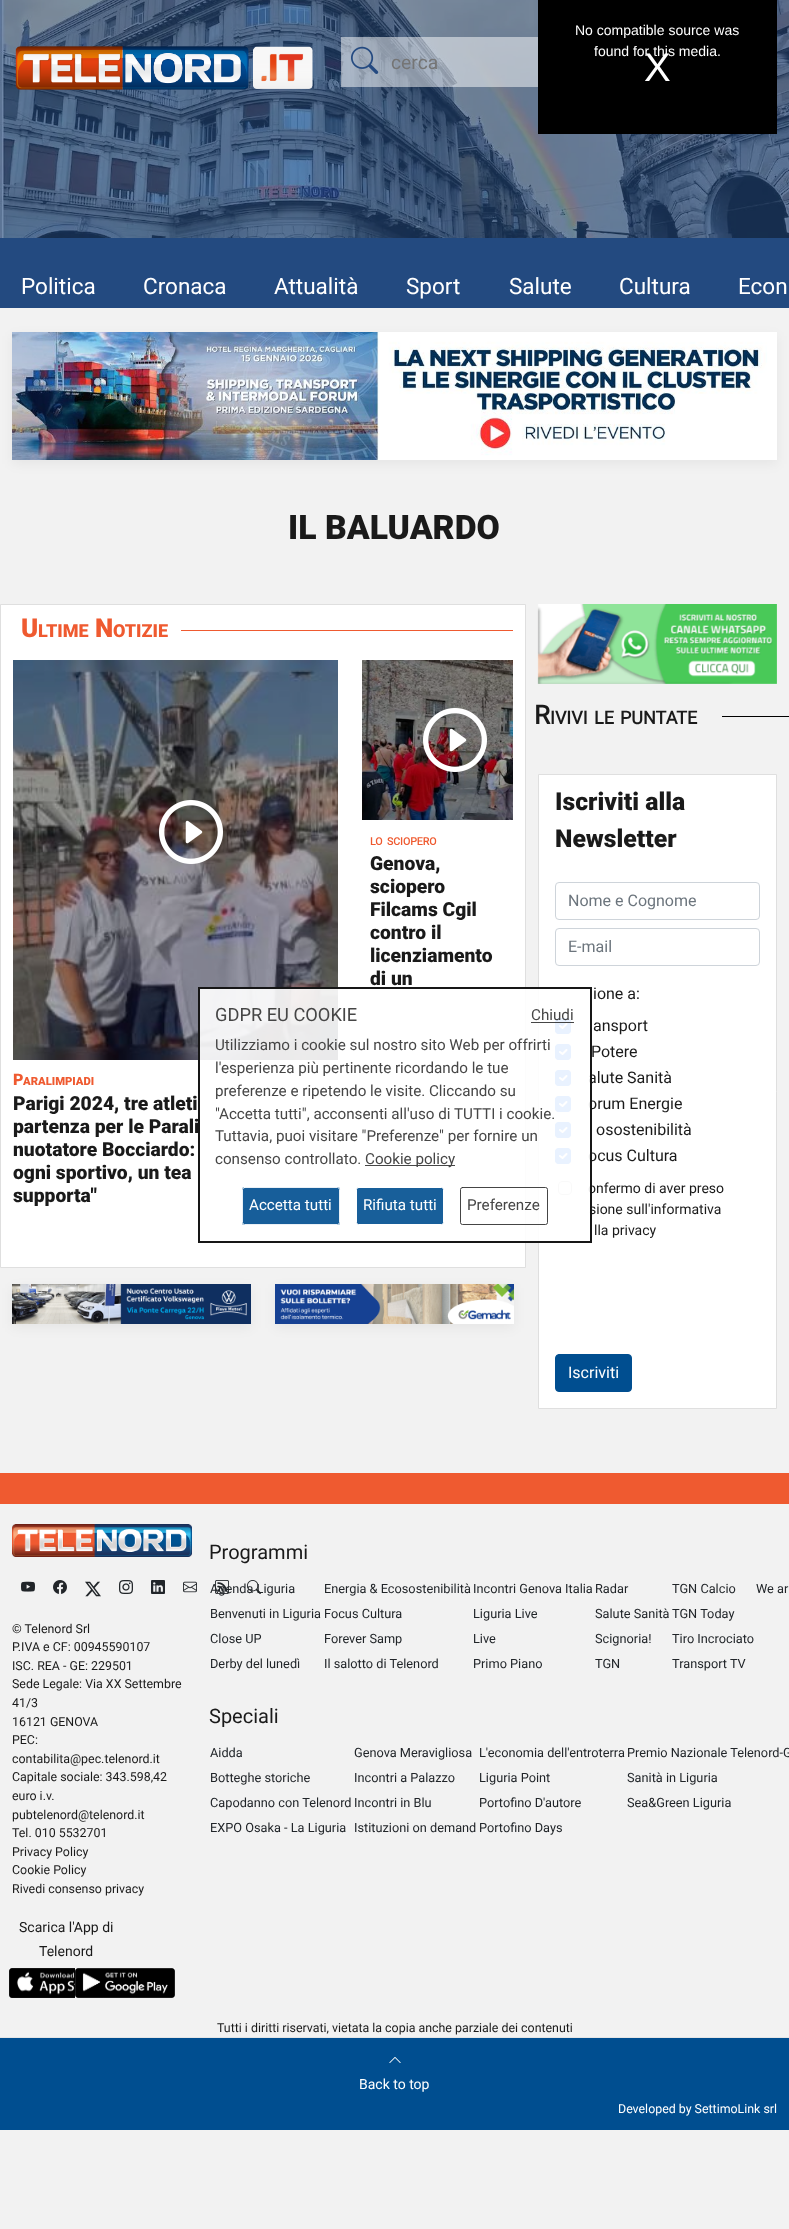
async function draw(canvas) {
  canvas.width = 789;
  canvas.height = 2229;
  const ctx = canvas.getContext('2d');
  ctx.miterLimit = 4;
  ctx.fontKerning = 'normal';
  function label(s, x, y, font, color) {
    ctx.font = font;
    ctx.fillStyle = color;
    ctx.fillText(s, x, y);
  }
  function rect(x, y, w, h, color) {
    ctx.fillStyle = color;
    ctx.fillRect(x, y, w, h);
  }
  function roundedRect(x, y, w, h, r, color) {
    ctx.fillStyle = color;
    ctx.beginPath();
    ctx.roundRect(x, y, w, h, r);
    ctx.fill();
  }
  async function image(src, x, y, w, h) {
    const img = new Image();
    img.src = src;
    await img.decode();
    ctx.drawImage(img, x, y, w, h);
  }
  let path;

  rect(0, 0, 789, 2229, '#f2f2f2');
  await image('assets/img1.png', 0, 0, 789, 238);
  await image('assets/img2.png', 15, 46, 298, 44);
  rect(341, 37, 197, 50, '#ffffff80');
  await image('assets/img3.png', 351, 46, 28, 28);
  label('cerca', 391, 69, '19.25px Roboto', '#757575');
  rect(538, 0, 239, 134, '#000');
  label('No compatible source was', 575, 35, '14px Liberation Sans', '#fff');
  label('found for this media.', 594, 56, '14px Liberation Sans', '#fff');
  label('X', 644, 81, '40px Liberation Sans', '#fff');
  rect(0, 238, 789, 70, '#234a80');
  label('Politica', 21, 294, '22.5px Roboto', '#fff');
  label('Cronaca', 143, 294, '22.5px Roboto', '#fff');
  label('Attualità', 274, 294, '22.5px Roboto', '#fff');
  label('Sport', 406, 294, '22.5px Roboto', '#fff');
  label('Salute', 509, 294, '22.5px Roboto', '#fff');
  label('Cultura', 619, 294, '22.5px Roboto', '#fff');
  label('Econ', 738, 294, '22.5px Roboto', '#fff');
  ctx.fillStyle = '#0000000d';
  ctx.filter = 'blur(6px)';
  ctx.beginPath();
  ctx.rect(12, 336, 765, 128);
  ctx.fill();
  ctx.filter = 'none';
  await image('assets/img4.png', 12, 332, 765, 128);
  label('IL BALUARDO', 288, 539, '900 33.75px Roboto', '#1a1a1a');
  ctx.fillStyle = '#fff';
  ctx.beginPath();
  ctx.rect(0.5, 604.5, 525, 663);
  ctx.fill();
  ctx.strokeStyle = '#dfdfdf';
  ctx.stroke();
  label('U', 21, 637, '900 26px Roboto', '#ef5a30');
  label('LTIME', 38, 637, '900 18px Roboto', '#ef5a30');
  label('N', 95, 637, '900 26px Roboto', '#ef5a30');
  label('OTIZIE', 113, 637, '900 18px Roboto', '#ef5a30');
  rect(181, 630, 332, 1, '#ef5a30');
  await image('assets/img5.png', 362, 660, 151, 160);
  await image('assets/img6.png', 423, 708, 64, 64);
  label('LO', 370, 845, 'bold 10.5px Roboto', '#ef5a30');
  label('SCIOPERO', 387, 845, 'bold 10.5px Roboto', '#ef5a30');
  label('Genova,', 370, 870, '900 19.25px Roboto', '#1a1a1a');
  label('sciopero', 370, 893, '900 19.25px Roboto', '#1a1a1a');
  label('Filcams Cgil', 370, 916, '900 19.25px Roboto', '#1a1a1a');
  label('contro il', 370, 939, '900 19.25px Roboto', '#1a1a1a');
  label('licenziamento', 370, 962, '900 19.25px Roboto', '#1a1a1a');
  label('di un', 370, 985, '900 19.25px Roboto', '#1a1a1a');
  await image('assets/img7.png', 13, 660, 325, 400);
  await image('assets/img8.png', 159, 800, 64, 64);
  label('P', 13, 1085, '900 16px Roboto', '#ef5a30');
  label('ARALIMPIADI', 23, 1085, '900 11.25px Roboto', '#ef5a30');
  label('Parigi 2024, tre atleti', 13, 1110, '900 19.25px Roboto', '#1a1a1a');
  label('partenza per le Parali', 13, 1133, '900 19.25px Roboto', '#1a1a1a');
  label('nuotatore Bocciardo:', 13, 1156, '900 19.25px Roboto', '#1a1a1a');
  label('ogni sportivo, un tea', 13, 1179, '900 19.25px Roboto', '#1a1a1a');
  label('supporta"', 13, 1202, '900 19.25px Roboto', '#1a1a1a');
  ctx.fillStyle = '#0000000d';
  ctx.filter = 'blur(6px)';
  ctx.beginPath();
  ctx.rect(12, 1288, 239, 40);
  ctx.fill();
  ctx.filter = 'none';
  await image('assets/img9.png', 12, 1284, 239, 40);
  ctx.filter = 'blur(6px)';
  ctx.beginPath();
  ctx.rect(275, 1288, 239, 40);
  ctx.fill();
  ctx.filter = 'none';
  await image('assets/img10.png', 275, 1284, 239, 40);
  await image('assets/img11.png', 537, 604, 240, 80);
  label('R', 534, 724, 'bold 26px Roboto', '#1a1a1a');
  label('IVIVI', 550, 724, 'bold 18px Roboto', '#1a1a1a');
  label('LE', 594, 724, 'bold 18px Roboto', '#1a1a1a');
  label('PUNTATE', 620, 724, 'bold 18px Roboto', '#1a1a1a');
  rect(722, 716, 67, 1, '#000');
  ctx.fillStyle = '#fff';
  ctx.beginPath();
  ctx.rect(538.5, 774.5, 238, 634);
  ctx.fill();
  ctx.stroke();
  label('Iscriviti alla', 555, 810, '900 24.75px Roboto', '#1a1a1a');
  label('Newsletter', 555, 847, '900 24.75px Roboto', '#1a1a1a');
  ctx.beginPath();
  ctx.roundRect(555.5, 882.5, 204, 37, 3.5);
  ctx.strokeStyle = '#ced4da';
  ctx.stroke();
  label('Nome e Cognome', 568, 906, '16px Roboto', '#6c757d');
  ctx.beginPath();
  ctx.roundRect(555.5, 928.5, 204, 37, 3.5);
  ctx.stroke();
  label('E-mail', 568, 952, '16px Roboto', '#6c757d');
  label('ione a:', 593, 999, '16px Roboto', '#1a1a1a');
  roundedRect(555, 1018, 16, 16, 4, '#0d6efd');
  path = new Path2D('M560 1026L562.5 1028L566.5 1024');
  ctx.strokeStyle = '#fff';
  ctx.lineWidth = 2.1;
  ctx.lineCap = 'round';
  ctx.lineJoin = 'round';
  ctx.stroke(path);
  ctx.beginPath();
  ctx.roundRect(555.5, 1018.5, 15, 15, 3.5);
  ctx.strokeStyle = '#0d6efd';
  ctx.lineWidth = 1;
  ctx.lineJoin = 'miter';
  ctx.stroke();
  label('ansport', 593, 1031, '16px Roboto', '#1a1a1a');
  roundedRect(555, 1044, 16, 16, 4, '#0d6efd');
  path = new Path2D('M560 1052L562.5 1054L566.5 1050');
  ctx.strokeStyle = '#fff';
  ctx.lineWidth = 2.1;
  ctx.lineJoin = 'round';
  ctx.stroke(path);
  ctx.beginPath();
  ctx.roundRect(555.5, 1044.5, 15, 15, 3.5);
  ctx.strokeStyle = '#0d6efd';
  ctx.lineWidth = 1;
  ctx.lineJoin = 'miter';
  ctx.stroke();
  label('Potere', 591, 1057, '16px Roboto', '#1a1a1a');
  roundedRect(555, 1070, 16, 16, 4, '#0d6efd');
  path = new Path2D('M560 1078L562.5 1080L566.5 1076');
  ctx.strokeStyle = '#fff';
  ctx.lineWidth = 2.1;
  ctx.lineJoin = 'round';
  ctx.stroke(path);
  ctx.beginPath();
  ctx.roundRect(555.5, 1070.5, 15, 15, 3.5);
  ctx.strokeStyle = '#0d6efd';
  ctx.lineWidth = 1;
  ctx.lineJoin = 'miter';
  ctx.stroke();
  label('alute Sanità', 588, 1083, '16px Roboto', '#1a1a1a');
  roundedRect(555, 1096, 16, 16, 4, '#0d6efd');
  path = new Path2D('M560 1104L562.5 1106L566.5 1102');
  ctx.strokeStyle = '#fff';
  ctx.lineWidth = 2.1;
  ctx.lineJoin = 'round';
  ctx.stroke(path);
  ctx.beginPath();
  ctx.roundRect(555.5, 1096.5, 15, 15, 3.5);
  ctx.strokeStyle = '#0d6efd';
  ctx.lineWidth = 1;
  ctx.lineJoin = 'miter';
  ctx.stroke();
  label('orum Energie', 588, 1109, '16px Roboto', '#1a1a1a');
  roundedRect(555, 1122, 16, 16, 4, '#0d6efd');
  path = new Path2D('M560 1130L562.5 1132L566.5 1128');
  ctx.strokeStyle = '#fff';
  ctx.lineWidth = 2.1;
  ctx.lineJoin = 'round';
  ctx.stroke(path);
  ctx.beginPath();
  ctx.roundRect(555.5, 1122.5, 15, 15, 3.5);
  ctx.strokeStyle = '#0d6efd';
  ctx.lineWidth = 1;
  ctx.lineJoin = 'miter';
  ctx.stroke();
  label('osostenibilità', 596, 1135, '16px Roboto', '#1a1a1a');
  roundedRect(555, 1148, 16, 16, 4, '#0d6efd');
  path = new Path2D('M560 1156L562.5 1158L566.5 1154');
  ctx.strokeStyle = '#fff';
  ctx.lineWidth = 2.1;
  ctx.lineJoin = 'round';
  ctx.stroke(path);
  ctx.beginPath();
  ctx.roundRect(555.5, 1148.5, 15, 15, 3.5);
  ctx.strokeStyle = '#0d6efd';
  ctx.lineWidth = 1;
  ctx.lineJoin = 'miter';
  ctx.stroke();
  label('ocus Cultura', 588, 1161, '16px Roboto', '#1a1a1a');
  ctx.beginPath();
  ctx.roundRect(558.5, 1181.5, 13, 13, 3.5);
  ctx.strokeStyle = '#bfbfbf';
  ctx.stroke();
  label('onfermo di aver preso', 588, 1193, '14px Roboto', '#1a1a1a');
  label('sione sull\'informativa', 589, 1214, '14px Roboto', '#1a1a1a');
  label('lla privacy', 594, 1235, '14px Roboto', '#1a1a1a');
  ctx.fillStyle = '#004e90';
  ctx.beginPath();
  ctx.roundRect(555.5, 1354.5, 76, 37, 3.5);
  ctx.fill();
  ctx.strokeStyle = '#004e90';
  ctx.stroke();
  label('Iscriviti', 568, 1378, '16px Roboto', '#fff');
  rect(198, 987, 394, 256, '#ffffffe8');
  ctx.strokeStyle = '#000000e8';
  ctx.lineWidth = 2;
  ctx.strokeRect(199, 988, 392, 254);
  label('GDPR EU COOKIE', 215, 1021, '18.25px Roboto', '#464646');
  label('Chiudi', 531, 1020, '15.2px Roboto', '#464646');
  rect(531, 1022, 43, 1, '#333333e8');
  label('Utilizziamo i cookie sul nostro sito Web per offrirti', 215, 1050, '15.2px Roboto', '#464646');
  label('l\'esperienza più pertinente ricordando le tue', 215, 1073, '15.2px Roboto', '#464646');
  label('preferenze e ripetendo le visite. Cliccando su', 215, 1096, '15.2px Roboto', '#464646');
  label('"Accetta tutti", acconsenti all\'uso di TUTTI i cookie.', 215, 1119, '15.2px Roboto', '#464646');
  label('Tuttavia, puoi visitare "Preferenze" per fornire un', 215, 1141, '15.2px Roboto', '#464646');
  label('consenso controllato.', 215, 1164, '15.2px Roboto', '#464646');
  rect(365, 1165, 90, 1, '#464646');
  label('Cookie policy', 365, 1164, '15.2px Roboto', '#464646');
  roundedRect(242, 1187, 98, 38, 2.5, '#004e90e8');
  ctx.beginPath();
  ctx.roundRect(242.5, 1187.5, 97, 37, 2);
  ctx.strokeStyle = '#ffffffe8';
  ctx.lineWidth = 1;
  ctx.stroke();
  label('Accetta tutti', 249, 1210, '15.2px Roboto', '#fff');
  ctx.fillStyle = '#185f9a';
  ctx.beginPath();
  ctx.roundRect(356.5, 1187.5, 87, 37, 2);
  ctx.fill();
  ctx.strokeStyle = '#fff';
  ctx.stroke();
  label('Rifiuta tutti', 363, 1210, '15.2px Roboto', '#fff');
  ctx.beginPath();
  ctx.roundRect(460.5, 1187.5, 87, 37, 2);
  ctx.strokeStyle = '#333333e8';
  ctx.stroke();
  label('Preferenze', 467, 1210, '15.2px Roboto', '#464646');
  rect(0, 1473, 789, 31, '#ef5a30');
  await image('assets/img12.png', 12, 1524, 180, 33);
  await image('assets/img13.png', 21, 1581, 14, 11);
  await image('assets/img14.png', 53, 1580, 14, 14);
  await image('assets/img15.png', 85, 1581, 16, 16);
  await image('assets/img16.png', 119, 1580, 14, 14);
  await image('assets/img17.png', 151, 1580, 14, 14);
  await image('assets/img18.png', 183, 1581, 14, 12);
  await image('assets/img19.png', 215, 1580, 14, 14);
  await image('assets/img20.png', 247, 1580, 14, 14);
  label('© Telenord Srl', 12, 1633, '12.4px Roboto', '#1a1a1a');
  label('P.IVA e CF: 00945590107', 12, 1651, '12.4px Roboto', '#1a1a1a');
  label('ISC. REA - GE: 229501', 12, 1670, '12.4px Roboto', '#1a1a1a');
  label('Sede Legale: Via XX Settembre', 12, 1688, '12.4px Roboto', '#1a1a1a');
  label('41/3', 12, 1707, '12.4px Roboto', '#1a1a1a');
  label('16121 GENOVA', 12, 1726, '12.4px Roboto', '#1a1a1a');
  label('PEC:', 12, 1744, '12.4px Roboto', '#1a1a1a');
  label('contabilita@pec.telenord.it', 12, 1763, '12.4px Roboto', '#1a1a1a');
  label('Capitale sociale: 343.598,42', 12, 1781, '12.4px Roboto', '#1a1a1a');
  label('euro i.v.', 12, 1800, '12.4px Roboto', '#1a1a1a');
  label('pubtelenord@telenord.it', 12, 1819, '12.4px Roboto', '#1a1a1a');
  label('Tel. 010 5532701', 12, 1837, '12.4px Roboto', '#1a1a1a');
  label('Privacy Policy', 12, 1856, '12.4px Roboto', '#1a1a1a');
  label('Cookie Policy', 12, 1874, '12.4px Roboto', '#1a1a1a');
  label('Rivedi consenso privacy', 12, 1893, '12.4px Roboto', '#1a1a1a');
  label('Scarica l\'App di', 19, 1932, '14px Roboto', '#1a1a1a');
  label('Telenord', 39, 1956, '14px Roboto', '#1a1a1a');
  await image('assets/img21.png', 9, 1968, 66, 30);
  await image('assets/img22.png', 75, 1968, 100, 30);
  label('Programmi', 209, 1559, '20px Roboto', '#1a1a1a');
  label('Agenda Liguria', 210, 1593, '12.75px Roboto', '#212529');
  label('Energia & Ecosostenibilità', 324, 1593, '12.75px Roboto', '#212529');
  label('Incontri Genova Italia', 473, 1593, '12.75px Roboto', '#212529');
  label('Radar', 595, 1593, '12.75px Roboto', '#212529');
  label('TGN Calcio', 672, 1593, '12.75px Roboto', '#212529');
  label('We ar', 756, 1593, '12.75px Roboto', '#212529');
  label('Benvenuti in Liguria', 210, 1618, '12.75px Roboto', '#212529');
  label('Focus Cultura', 324, 1618, '12.75px Roboto', '#212529');
  label('Liguria Live', 473, 1618, '12.75px Roboto', '#212529');
  label('Salute Sanità', 595, 1618, '12.75px Roboto', '#212529');
  label('TGN Today', 672, 1618, '12.75px Roboto', '#212529');
  label('Close UP', 210, 1643, '12.75px Roboto', '#212529');
  label('Forever Samp', 324, 1643, '12.75px Roboto', '#212529');
  label('Live', 473, 1643, '12.75px Roboto', '#212529');
  label('Scignoria!', 595, 1643, '12.75px Roboto', '#212529');
  label('Tiro Incrociato', 672, 1643, '12.75px Roboto', '#212529');
  label('Derby del lunedì', 210, 1668, '12.75px Roboto', '#212529');
  label('Il salotto di Telenord', 324, 1668, '12.75px Roboto', '#212529');
  label('Primo Piano', 473, 1668, '12.75px Roboto', '#212529');
  label('TGN', 595, 1668, '12.75px Roboto', '#212529');
  label('Transport TV', 672, 1668, '12.75px Roboto', '#212529');
  label('Speciali', 209, 1723, '20px Roboto', '#1a1a1a');
  label('Aidda', 210, 1757, '12.75px Roboto', '#212529');
  label('Genova Meravigliosa', 354, 1757, '12.75px Roboto', '#212529');
  label('L\'economia dell\'entroterra', 479, 1757, '12.75px Roboto', '#212529');
  label('Premio Nazionale Telenord-G', 627, 1757, '12.75px Roboto', '#212529');
  label('Botteghe storiche', 210, 1782, '12.75px Roboto', '#212529');
  label('Incontri a Palazzo', 354, 1782, '12.75px Roboto', '#212529');
  label('Liguria Point', 479, 1782, '12.75px Roboto', '#212529');
  label('Sanità in Liguria', 627, 1782, '12.75px Roboto', '#212529');
  label('Capodanno con Telenord', 210, 1807, '12.75px Roboto', '#212529');
  label('Incontri in Blu', 354, 1807, '12.75px Roboto', '#212529');
  label('Portofino D\'autore', 479, 1807, '12.75px Roboto', '#212529');
  label('Sea&Green Liguria', 627, 1807, '12.75px Roboto', '#212529');
  label('EXPO Osaka - La Liguria', 210, 1832, '12.75px Roboto', '#212529');
  label('Istituzioni on demand', 354, 1832, '12.75px Roboto', '#212529');
  label('Portofino Days', 479, 1832, '12.75px Roboto', '#212529');
  label('Tutti i diritti riservati, vietata la copia anche parziale dei contenuti', 217, 2032, '12.4px Roboto', '#1a1a1a');
  rect(0, 2038, 789, 92, '#004e90');
  rect(0, 2037, 789, 1, '#e5e5e5');
  await image('assets/img23.png', 389, 2057, 12, 6);
  label('Back to top', 359, 2089, '14px Roboto', '#fff');
  label('Developed by SettimoLink srl', 618, 2113, '12.4px Roboto', '#fff');
}

draw(document.querySelector('canvas'));
